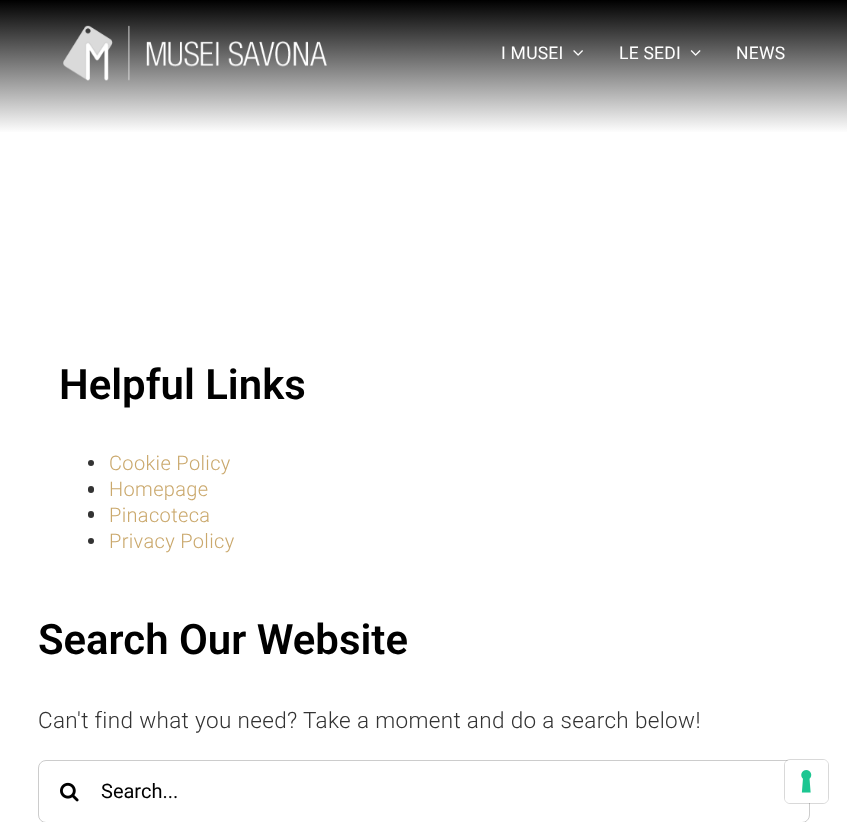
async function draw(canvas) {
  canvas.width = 847;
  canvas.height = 822;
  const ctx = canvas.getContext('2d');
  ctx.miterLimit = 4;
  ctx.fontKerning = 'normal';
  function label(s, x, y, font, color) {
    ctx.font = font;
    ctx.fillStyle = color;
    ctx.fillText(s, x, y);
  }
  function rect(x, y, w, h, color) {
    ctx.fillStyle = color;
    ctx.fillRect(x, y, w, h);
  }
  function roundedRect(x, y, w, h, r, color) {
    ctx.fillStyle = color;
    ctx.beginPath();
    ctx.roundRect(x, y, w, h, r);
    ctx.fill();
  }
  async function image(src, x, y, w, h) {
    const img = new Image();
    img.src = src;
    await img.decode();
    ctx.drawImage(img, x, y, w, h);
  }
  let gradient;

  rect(0, 0, 847, 822, '#fff');
  gradient = ctx.createLinearGradient(424, 0, 424, 133);
  gradient.addColorStop(0, '#000');
  gradient.addColorStop(1, '#fff');
  ctx.fillStyle = gradient;
  ctx.fillRect(0, 0, 847, 132);
  await image('assets/img1.png', 63, 25, 264, 56);
  ctx.letterSpacing = '0.25px';
  label('I MUSEI', 501, 59, '17.5px Roboto', '#fff');
  await image('assets/img2.png', 573, 50, 10, 6);
  label('LE SEDI', 619, 59, '17.5px Roboto', '#fff');
  await image('assets/img3.png', 690, 50, 11, 6);
  label('NEWS', 736, 59, '17.5px Roboto', '#fff');
  ctx.letterSpacing = '0px';
  label('Helpful Links', 59, 399, '600 41.9px Roboto', '#000');
  ctx.fillStyle = '#333';
  ctx.beginPath();
  ctx.arc(91, 463, 3, 0, 2 * Math.PI);
  ctx.fill();
  ctx.letterSpacing = '0.35px';
  label('Cookie Policy', 109, 470, '300 20px Roboto', '#caa86c');
  roundedRect(88, 486, 6, 7, 3, '#333');
  label('Homepage', 109, 496, '300 20px Roboto', '#caa86c');
  roundedRect(88, 511, 6, 7, 3, '#333');
  label('Pinacoteca', 109, 522, '300 20px Roboto', '#caa86c');
  ctx.fillStyle = '#333';
  ctx.beginPath();
  ctx.arc(91, 541, 3, 0, 2 * Math.PI);
  ctx.fill();
  label('Privacy Policy', 109, 548, '300 20px Roboto', '#caa86c');
  ctx.letterSpacing = '0px';
  label('Search Our Website', 38, 654, '600 41.9px Roboto', '#000');
  ctx.letterSpacing = '0.35px';
  label('Can\'t find what you need? Take a moment and do a search below!', 38, 728, '300 22.5px Roboto', '#333');
  ctx.beginPath();
  ctx.roundRect(38.5, 760.5, 771, 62, 7.5);
  ctx.strokeStyle = '#ccc';
  ctx.stroke();
  await image('assets/img4.png', 60, 782, 19, 20);
  ctx.letterSpacing = '0px';
  label('Search...', 101, 798, '20px Roboto', '#000');
  ctx.beginPath();
  ctx.roundRect(784.5, 759.5, 44, 44, 5.5);
  ctx.strokeStyle = '#00000026';
  ctx.stroke();
  roundedRect(785, 760, 43, 43, 5, '#fff');
  await image('assets/img5.png', 801, 770, 11, 23);
}

draw(document.querySelector('canvas'));
